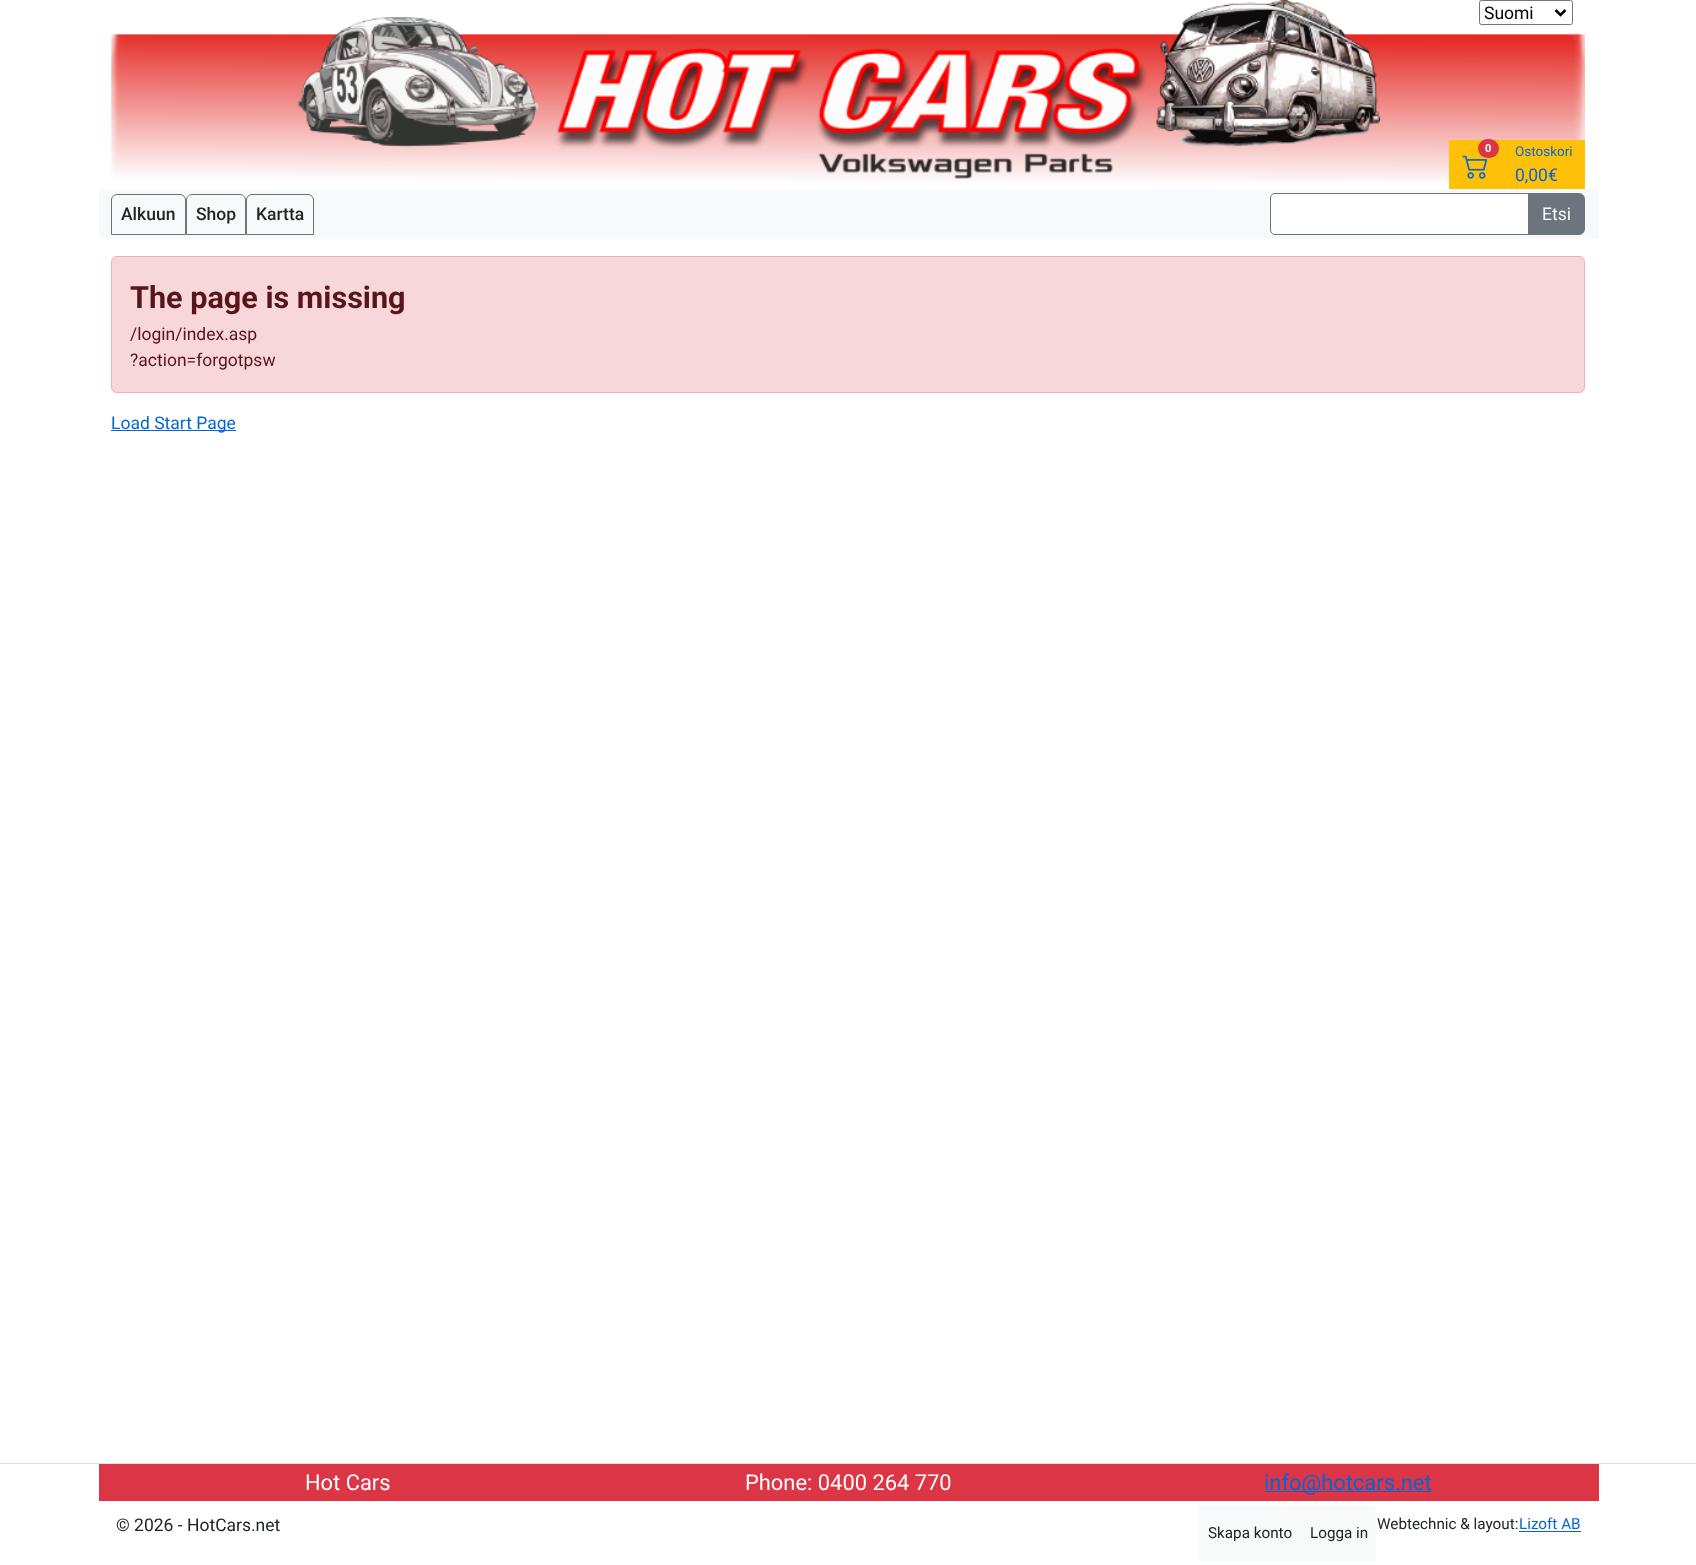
async function draw(canvas) {
  canvas.width = 1696;
  canvas.height = 1565;
  const ctx = canvas.getContext('2d');
  ctx.miterLimit = 4;
  ctx.fontKerning = 'normal';
  function label(s, x, y, font, color) {
    ctx.font = font;
    ctx.fillStyle = color;
    ctx.fillText(s, x, y);
  }
  function rect(x, y, w, h, color) {
    ctx.fillStyle = color;
    ctx.fillRect(x, y, w, h);
  }
  function roundedRect(x, y, w, h, r, color) {
    ctx.fillStyle = color;
    ctx.beginPath();
    ctx.roundRect(x, y, w, h, r);
    ctx.fill();
  }
  async function image(src, x, y, w, h) {
    const img = new Image();
    img.src = src;
    await img.decode();
    ctx.drawImage(img, x, y, w, h);
  }
  let path;

  rect(0, 0, 1696, 1565, '#fff');
  await image('assets/img1.png', 111, 0, 1474, 182);
  rect(1479, 0, 94, 26, '#f8f9fa');
  ctx.fillStyle = '#fff';
  ctx.beginPath();
  ctx.roundRect(1479.5, 0.5, 93, 24, 2);
  ctx.fill();
  ctx.strokeStyle = '#767676';
  ctx.stroke();
  path = new Path2D('M1555.5 10L1560.5 15L1565.5 10');
  ctx.strokeStyle = '#000';
  ctx.lineWidth = 2.5;
  ctx.stroke(path);
  label('Suomi', 1484, 19, '17.5px Roboto', '#000');
  rect(1449, 140, 136, 49, '#ffc107');
  await image('assets/img2.png', 1462, 155, 26, 24);
  roundedRect(1478, 139, 21, 19, 9.5, '#dc3545');
  label('0', 1485, 152, 'bold 11px Roboto', '#fff');
  label('Ostoskori', 1515, 156, '13.5px Roboto', '#0366d6');
  label('0,00€', 1515, 181, '17.5px Roboto', '#0366d6');
  rect(99, 189, 1500, 50, '#f8f9fa');
  ctx.beginPath();
  ctx.roundRect(111.5, 194.5, 74, 40, [5.5, 5.5, 0, 0]);
  ctx.strokeStyle = '#6c757d';
  ctx.lineWidth = 1;
  ctx.stroke();
  label('Alkuun', 121, 220, '500 17.5px Roboto', '#212529');
  ctx.beginPath();
  ctx.roundRect(186.5, 194.5, 59, 40, [5.5, 5.5, 0, 0]);
  ctx.stroke();
  label('Shop', 196, 220, '500 17.5px Roboto', '#212529');
  ctx.beginPath();
  ctx.roundRect(246.5, 194.5, 67, 40, [5.5, 5.5, 0, 0]);
  ctx.stroke();
  label('Kartta', 256, 220, '500 17.5px Roboto', '#212529');
  ctx.fillStyle = '#fff';
  ctx.beginPath();
  ctx.roundRect(1271, 194, 257, 40, [3, 0, 0, 3]);
  ctx.fill();
  ctx.beginPath();
  ctx.roundRect(1270.5, 193.5, 258, 41, [4.5, 0, 0, 4.5]);
  ctx.stroke();
  ctx.fillStyle = '#6c757d';
  ctx.beginPath();
  ctx.roundRect(1528.5, 193.5, 56, 41, [0, 5.5, 5.5, 0]);
  ctx.fill();
  ctx.stroke();
  label('Etsi', 1542, 220, '17.5px Roboto', '#f8f9fa');
  ctx.fillStyle = '#f8d7da';
  ctx.beginPath();
  ctx.roundRect(111.5, 256.5, 1473, 136, 5.5);
  ctx.fill();
  ctx.strokeStyle = '#f1aeb5';
  ctx.stroke();
  label('The page is missing', 130, 308, 'bold 30.6px Roboto', '#58151c');
  label('/login/index.asp', 130, 340, '17.5px Roboto', '#58151c');
  label('?action=forgotpsw', 130, 366, '17.5px Roboto', '#58151c');
  rect(111, 430, 125, 1, '#0366d6');
  label('Load Start Page', 111, 429, '17.5px Roboto', '#0366d6');
  rect(0, 1463, 1696, 1, '#dee2e6');
  rect(99, 1464, 1500, 37, '#dc3545');
  label('Hot Cars', 305, 1490, '21.9px Roboto', '#fff');
  label('Phone: 0400 264 770', 745, 1490, '21.9px Roboto', '#fff');
  rect(1265, 1491, 166, 1, '#0366d6');
  label('info@hotcars.net', 1264, 1490, '21.9px Roboto', '#0366d6');
  label('© 2026 - HotCars.net', 116, 1531, '17.5px Roboto', '#212529');
  label('Webtechnic & layout:', 1377, 1529, '15.25px Roboto', '#212529');
  label('Lizoft AB', 1519, 1529, '15.25px Roboto', '#0366d6');
  rect(1519, 1531, 62, 1, '#0366d6');
  rect(1199, 1506, 177, 55, '#f8f9fa');
  label('Skapa konto', 1208, 1538, '15.25px Roboto', '#212529');
  label('Logga in', 1310, 1538, '15.25px Roboto', '#212529');
}

draw(document.querySelector('canvas'));
